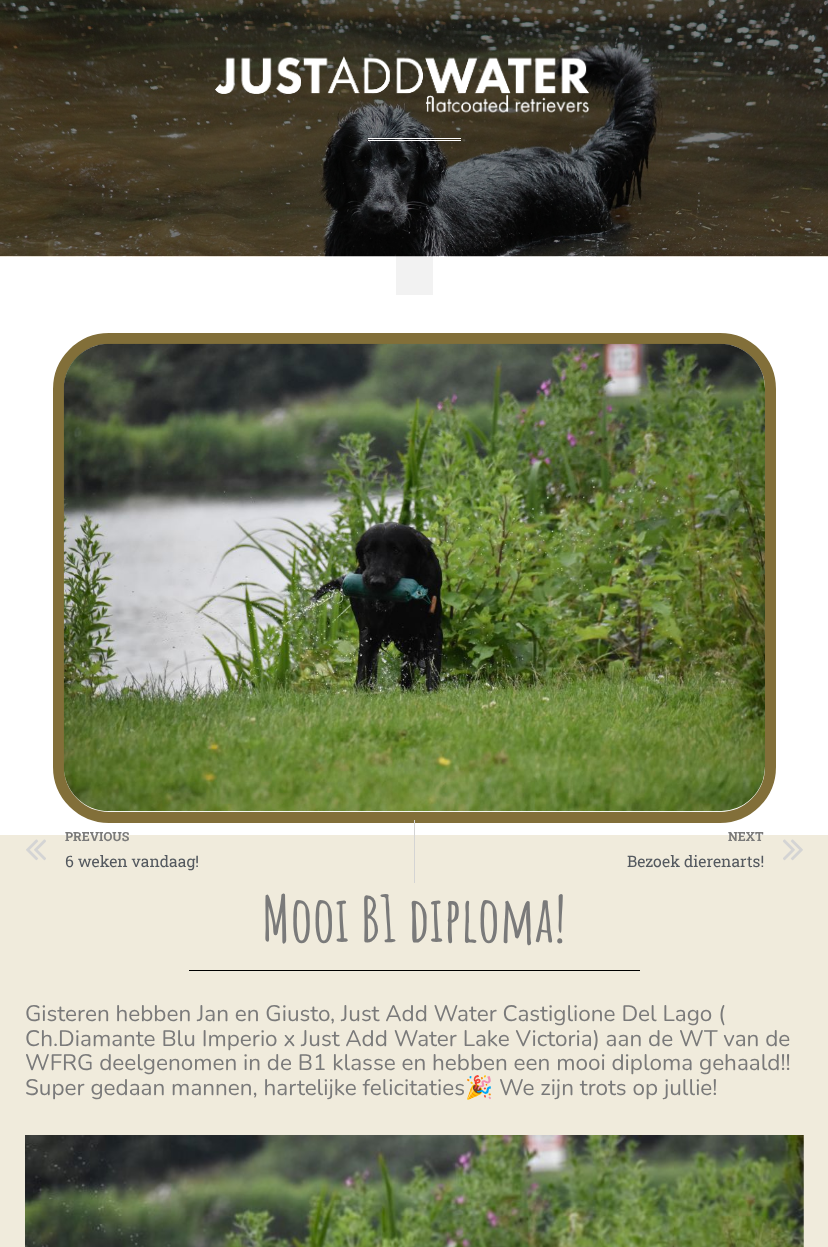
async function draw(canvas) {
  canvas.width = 828;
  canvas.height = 1247;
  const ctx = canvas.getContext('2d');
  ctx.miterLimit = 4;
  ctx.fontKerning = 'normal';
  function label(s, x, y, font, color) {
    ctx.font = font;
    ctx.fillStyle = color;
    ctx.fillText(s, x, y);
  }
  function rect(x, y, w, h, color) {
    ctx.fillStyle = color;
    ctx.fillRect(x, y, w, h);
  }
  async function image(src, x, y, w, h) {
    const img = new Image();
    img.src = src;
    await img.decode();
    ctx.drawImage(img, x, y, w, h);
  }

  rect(0, 0, 828, 1247, '#fff');
  await image('assets/img1.png', 0, 0, 828, 257);
  await image('assets/img2.png', 215, 56, 375, 57);
  rect(368, 138, 93, 1, '#fff');
  rect(368, 140, 93, 1, '#fff');
  rect(396, 254, 37, 41, '#0000000d');
  ctx.beginPath();
  ctx.roundRect(58.5, 338.5, 712, 479, 50.5);
  ctx.strokeStyle = '#826f39';
  ctx.lineWidth = 11;
  ctx.stroke();
  await image('assets/img3.png', 63, 343, 702, 469);
  rect(0, 835, 828, 412, '#f0ebdc');
  await image('assets/img4.png', 26, 839, 20, 22);
  label('PREVIOUS', 65, 841, 'bold 12.5px Roboto Slab', '#7a7a7a');
  label('6 weken vandaag!', 65, 867, '15.75px Roboto Slab', '#54595f');
  rect(414, 820, 1, 63, '#d4d4d4');
  label('NEXT', 728, 841, 'bold 12.5px Roboto Slab', '#7a7a7a');
  label('Bezoek dierenarts!', 627, 867, '15.75px Roboto Slab', '#54595f');
  await image('assets/img5.png', 783, 839, 20, 22);
  ctx.letterSpacing = '-0.1px';
  label('Mooi B1 diploma!', 262, 942, 'bold 62.5px Amatic SC', '#7a7a7a');
  rect(189, 970, 451, 1, '#000');
  ctx.letterSpacing = '0px';
  label('Gisteren hebben Jan en Giusto, Just Add Water Castiglione Del Lago (', 25, 1021, '22.5px Nunito', '#7a7a7a');
  label('Ch.Diamante Blu Imperio x Just Add Water Lake Victoria) aan de WT van de', 25, 1046, '22.5px Nunito', '#7a7a7a');
  label('WFRG deelgenomen in de B1 klasse en hebben een mooi diploma gehaald!!', 25, 1070, '22.5px Nunito', '#7a7a7a');
  label('Super gedaan mannen, hartelijke felicitaties', 25, 1095, '22.5px Nunito', '#7a7a7a');
  label('🎉', 465, 1095, '22.5px Noto Color Emoji', '#7a7a7a');
  label('We zijn trots op jullie!', 499, 1095, '22.5px Nunito', '#7a7a7a');
  await image('assets/img6.png', 25, 1135, 779, 112);
}

draw(document.querySelector('canvas'));
